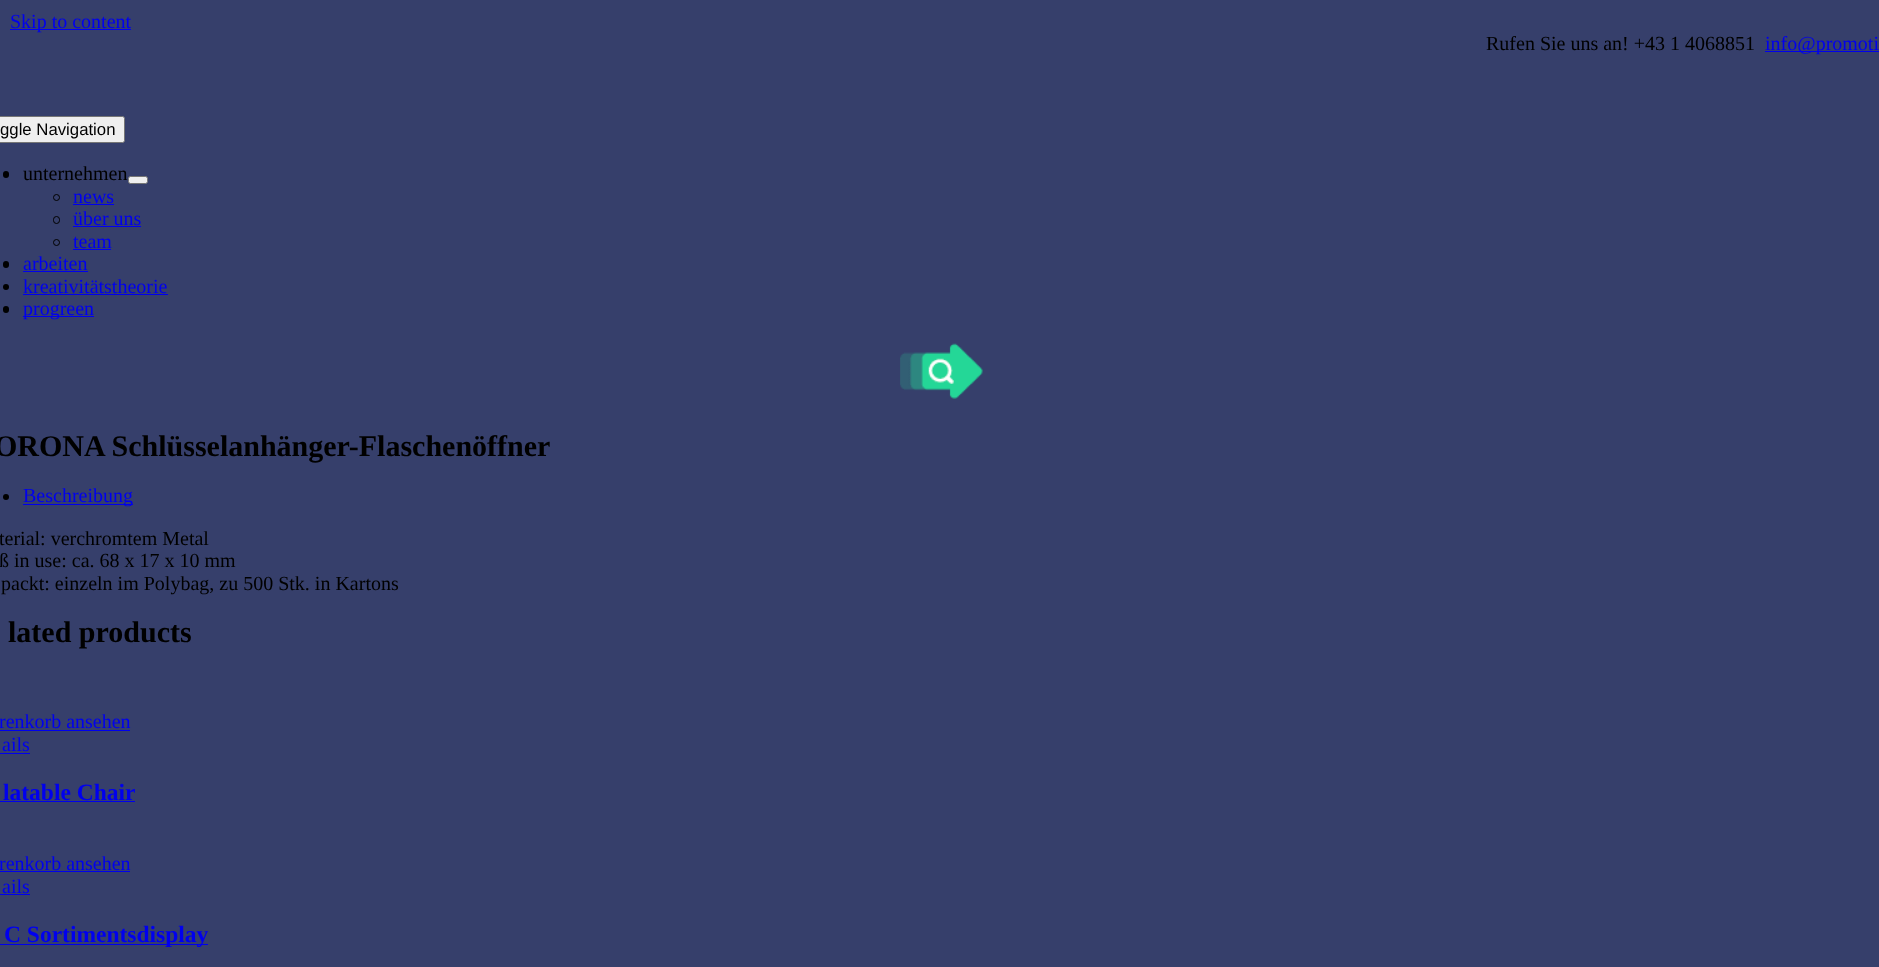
async function draw(canvas) {
  canvas.width = 1879;
  canvas.height = 967;
  const ctx = canvas.getContext('2d');
  ctx.miterLimit = 4;
  ctx.fontKerning = 'normal';
  function label(s, x, y, font, color) {
    ctx.font = font;
    ctx.fillStyle = color;
    ctx.fillText(s, x, y);
  }
  function rect(x, y, w, h, color) {
    ctx.fillStyle = color;
    ctx.fillRect(x, y, w, h);
  }
  function roundedRect(x, y, w, h, r, color) {
    ctx.fillStyle = color;
    ctx.beginPath();
    ctx.roundRect(x, y, w, h, r);
    ctx.fill();
  }
  async function image(src, x, y, w, h) {
    const img = new Image();
    img.src = src;
    await img.decode();
    ctx.drawImage(img, x, y, w, h);
  }

  rect(0, 0, 1879, 967, '#363f6b');
  rect(10, 29, 121, 1, '#00e');
  label('Skip to content', 10, 28, '20px Liberation Serif', '#00e');
  label('Rufen Sie uns an! +43 1 4068851', 1486, 50, '20px Liberation Serif', '#000');
  rect(1765, 51, 114, 1, '#00e');
  label('info@promoti', 1765, 50, '20px Liberation Serif', '#00e');
  ctx.fillStyle = '#efefef';
  ctx.beginPath();
  ctx.roundRect(-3.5, 116.5, 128, 26, 2);
  ctx.fill();
  ctx.strokeStyle = '#767676';
  ctx.stroke();
  label('ggle Navigation', 0, 135, '16.75px Liberation Sans', '#000');
  roundedRect(3, 171, 6, 7, 3, '#000');
  label('unternehmen', 23, 180, '20px Liberation Serif', '#000');
  ctx.fillStyle = '#efefef';
  ctx.beginPath();
  ctx.roundRect(128.5, 176.5, 19, 7, 2);
  ctx.fill();
  ctx.stroke();
  ctx.beginPath();
  ctx.arc(56.5, 197.5, 3, 0, 2 * Math.PI);
  ctx.strokeStyle = '#000';
  ctx.stroke();
  label('news', 73, 203, '20px Liberation Serif', '#00e');
  rect(73, 204, 41, 1, '#00e');
  ctx.beginPath();
  ctx.roundRect(53.5, 216.5, 6, 7, 3);
  ctx.stroke();
  label('über uns', 73, 225, '20px Liberation Serif', '#00e');
  rect(73, 226, 68, 1, '#00e');
  ctx.beginPath();
  ctx.arc(56.5, 242.5, 3, 0, 2 * Math.PI);
  ctx.stroke();
  label('team', 73, 248, '20px Liberation Serif', '#00e');
  rect(73, 249, 38, 1, '#00e');
  roundedRect(3, 261, 6, 7, 3, '#000');
  label('arbeiten', 23, 270, '20px Liberation Serif', '#00e');
  rect(23, 271, 65, 1, '#00e');
  ctx.fillStyle = '#000';
  ctx.beginPath();
  ctx.arc(6, 287, 3, 0, 2 * Math.PI);
  ctx.fill();
  label('kreativitätstheorie', 23, 293, '20px Liberation Serif', '#00e');
  rect(23, 294, 145, 1, '#00e');
  roundedRect(3, 306, 6, 7, 3, '#000');
  rect(23, 316, 71, 1, '#00e');
  label('progreen', 23, 315, '20px Liberation Serif', '#00e');
  await image('assets/img1.png', 900, 343, 83, 56);
  label('ORONA Schlüsselanhänger-Flaschenöffner', -6, 456, 'bold 30px Liberation Serif', '#000');
  ctx.beginPath();
  ctx.arc(6, 497, 3, 0, 2 * Math.PI);
  ctx.fill();
  rect(23, 504, 110, 1, '#00e');
  label('Beschreibung', 23, 502, '20px Liberation Serif', '#00e');
  label('terial: verchromtem Metal', -1, 545, '20px Liberation Serif', '#000');
  label('ß in use: ca. 68 x 17 x 10 mm', -1, 567, '20px Liberation Serif', '#000');
  label('packt: einzeln im Polybag, zu 500 Stk. in Kartons', 1, 590, '20px Liberation Serif', '#000');
  label('lated products', 8, 642, 'bold 30px Liberation Serif', '#000');
  label('renkorb ansehen', -1, 728, '20px Liberation Serif', '#00e');
  rect(0, 730, 130, 1, '#00e');
  label('ails', 2, 751, '20px Liberation Serif', '#00e');
  rect(0, 753, 30, 1, '#00e');
  label('latable Chair', 3, 800, 'bold 23.5px Liberation Serif', '#00e');
  rect(0, 801, 135, 1, '#00e');
  label('renkorb ansehen', -1, 870, '20px Liberation Serif', '#00e');
  rect(0, 871, 130, 1, '#00e');
  label('ails', 2, 893, '20px Liberation Serif', '#00e');
  rect(0, 894, 30, 1, '#00e');
  rect(0, 944, 208, 1, '#00e');
  label('C Sortimentsdisplay', 4, 942, 'bold 23.5px Liberation Serif', '#00e');
}

draw(document.querySelector('canvas'));
